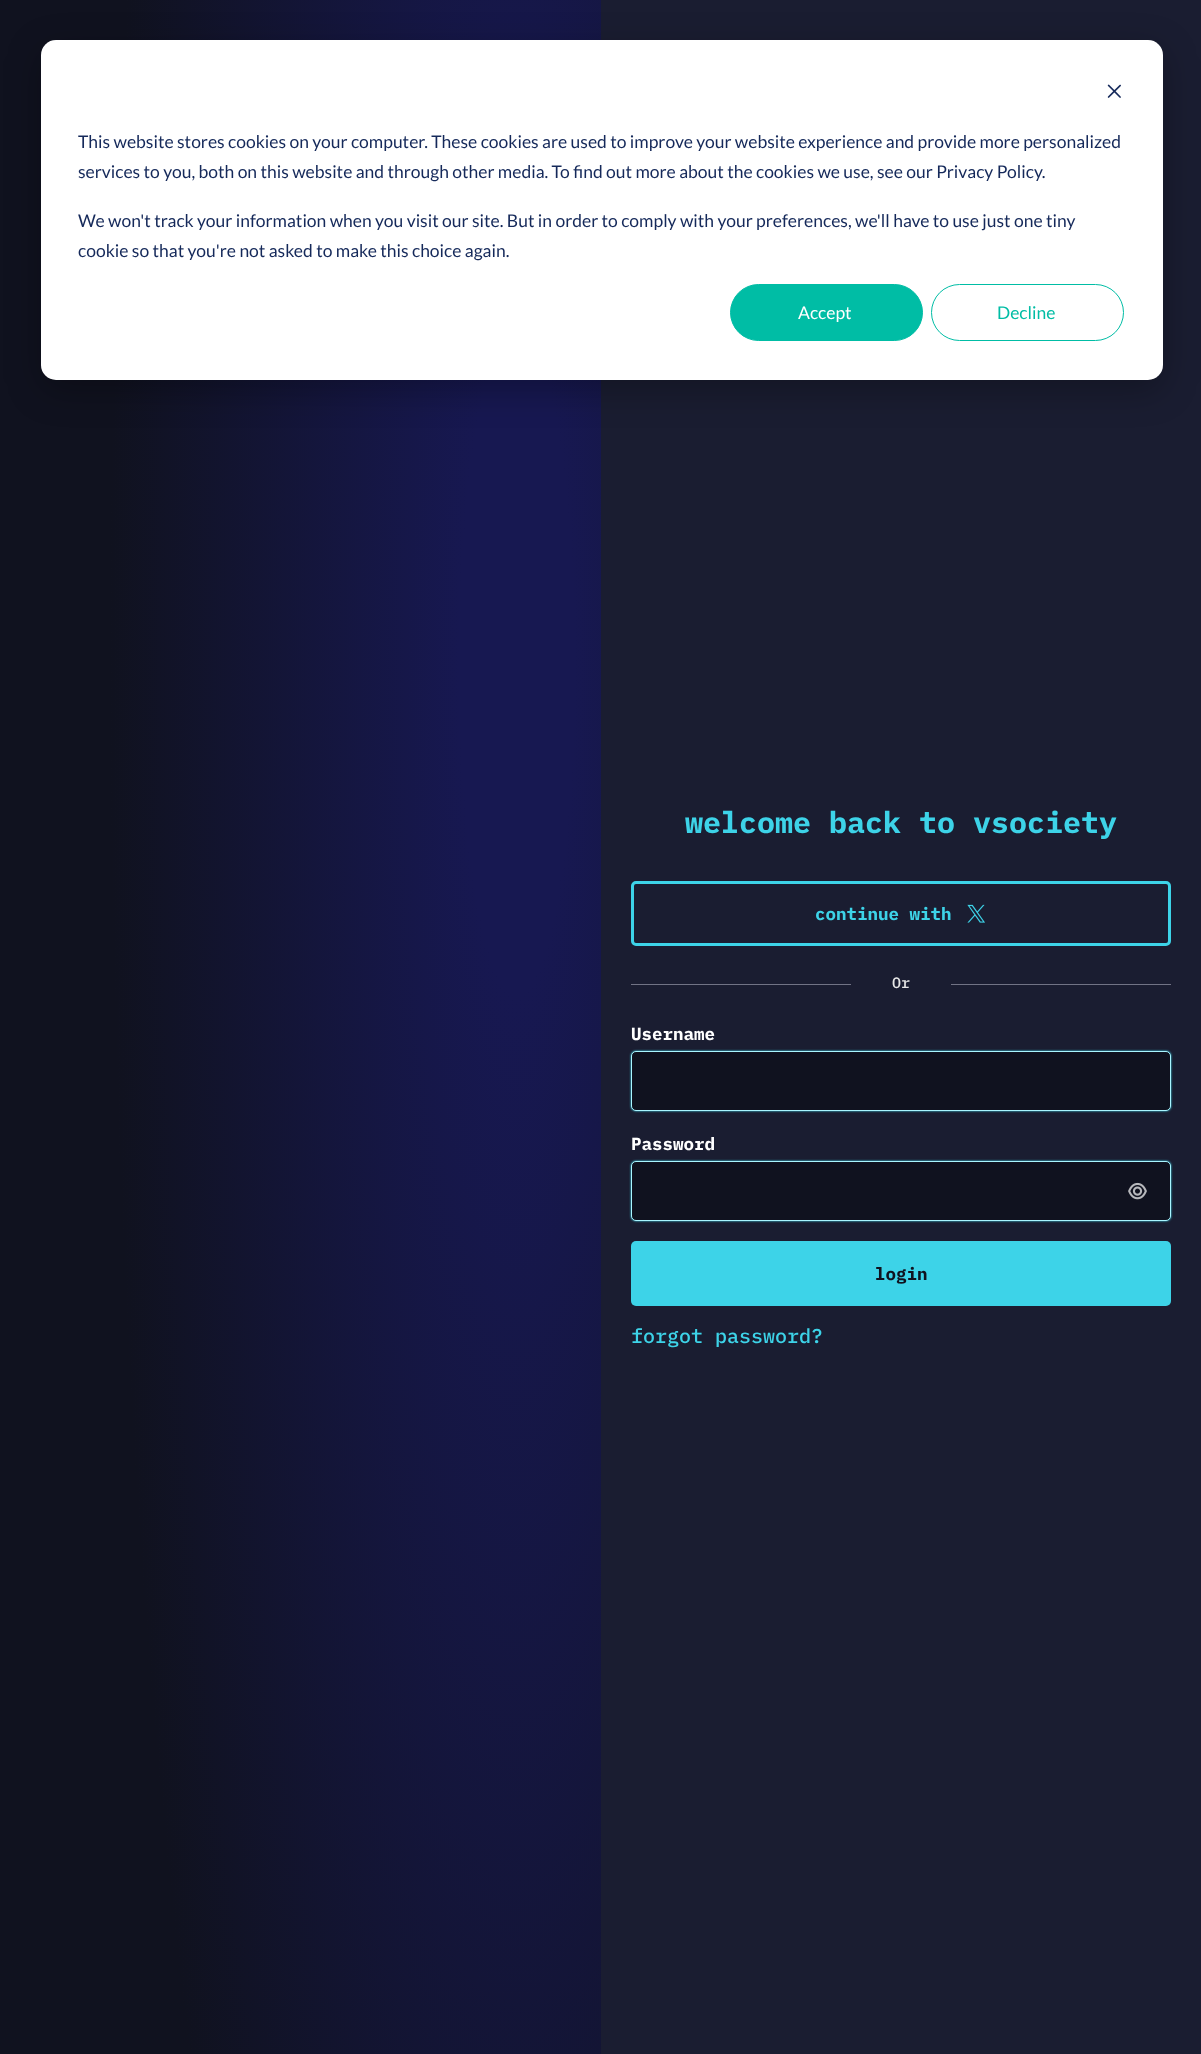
async function draw(canvas) {
  canvas.width = 1201;
  canvas.height = 2054;
  const ctx = canvas.getContext('2d');
  ctx.miterLimit = 4;
  ctx.fontKerning = 'normal';
  function label(s, x, y, font, color) {
    ctx.font = font;
    ctx.fillStyle = color;
    ctx.fillText(s, x, y);
  }
  function rect(x, y, w, h, color) {
    ctx.fillStyle = color;
    ctx.fillRect(x, y, w, h);
  }
  function roundedRect(x, y, w, h, r, color) {
    ctx.fillStyle = color;
    ctx.beginPath();
    ctx.roundRect(x, y, w, h, r);
    ctx.fill();
  }
  async function image(src, x, y, w, h) {
    const img = new Image();
    img.src = src;
    await img.decode();
    ctx.drawImage(img, x, y, w, h);
  }
  let gradient;

  rect(0, 0, 1201, 2054, '#1a1d31');
  gradient = ctx.createRadialGradient(517, 115.39, 0, 517, 115.39, 407);
  gradient.addColorStop(0.14, '#171851');
  gradient.addColorStop(1, '#10121f');
  ctx.fillStyle = gradient;
  ctx.beginPath();
  ctx.rect(0, 0, 601, 2054);
  ctx.save();
  ctx.clip();
  ctx.scale(1, 2342 / 407);
  ctx.fillRect(0, 0, 1201, 357);
  ctx.restore();
  ctx.fillStyle = '#00000047';
  ctx.filter = 'blur(17.5px)';
  ctx.beginPath();
  ctx.roundRect(41, 50, 1122, 340, 15);
  ctx.fill();
  ctx.filter = 'none';
  roundedRect(41, 40, 1122, 340, 15, '#fff');
  await image('assets/img1.png', 1107, 84, 14, 14);
  label('This website stores cookies on your computer. These cookies are used to improve your website experience and provide more personalized', 78, 148, '17.5px Lato', '#15295a');
  label('services to you, both on this website and through other media. To find out more about the cookies we use, see our Privacy Policy.', 78, 178, '17.5px Lato', '#15295a');
  label('We won\'t track your information when you visit our site. But in order to comply with your preferences, we\'ll have to use just one tiny', 78, 227, '17.5px Lato', '#15295a');
  label('cookie so that you\'re not asked to make this choice again.', 78, 257, '17.5px Lato', '#15295a');
  ctx.fillStyle = '#00bda5';
  ctx.beginPath();
  ctx.roundRect(730.5, 284.5, 192, 56, 28);
  ctx.fill();
  ctx.strokeStyle = '#00bda5';
  ctx.stroke();
  label('Accept', 798, 319, '17.5px Lato', '#fff');
  ctx.beginPath();
  ctx.roundRect(931.5, 284.5, 192, 56, 28);
  ctx.stroke();
  label('Decline', 997, 319, '17.5px Lato', '#00bda5');
  label('welcome back to vsociety', 685, 833, 'bold 30px IBM Plex Mono', '#3dd3e8');
  ctx.beginPath();
  ctx.roundRect(632.5, 882.5, 537, 62, 3.5);
  ctx.strokeStyle = '#3dd3e8';
  ctx.lineWidth = 3;
  ctx.stroke();
  label('continue with', 815, 920, 'bold 17.5px IBM Plex Mono', '#3dd3e8');
  await image('assets/img2.png', 967, 904, 18, 19);
  rect(631, 984, 220, 1, '#717385');
  label('Or', 892, 988, '500 15px IBM Plex Mono', '#e8e8e8');
  rect(951, 984, 220, 1, '#717385');
  label('Username', 631, 1040, 'bold 17.5px IBM Plex Mono', '#fff');
  ctx.fillStyle = '#3dd3e8';
  ctx.filter = 'blur(1px)';
  ctx.beginPath();
  ctx.roundRect(631, 1051, 540, 60, 5);
  ctx.fill();
  ctx.filter = 'none';
  ctx.fillStyle = '#10121f';
  ctx.beginPath();
  ctx.roundRect(631.5, 1051.5, 539, 59, 4.5);
  ctx.fill();
  ctx.strokeStyle = '#a9f5ff';
  ctx.lineWidth = 1;
  ctx.stroke();
  label('Password', 631, 1150, 'bold 17.5px IBM Plex Mono', '#fff');
  ctx.fillStyle = '#3dd3e8';
  ctx.filter = 'blur(1px)';
  ctx.beginPath();
  ctx.roundRect(631, 1161, 540, 60, 5);
  ctx.fill();
  ctx.filter = 'none';
  ctx.fillStyle = '#10121f';
  ctx.beginPath();
  ctx.roundRect(631.5, 1161.5, 539, 59, 4.5);
  ctx.fill();
  ctx.stroke();
  await image('assets/img3.png', 1128, 1182, 19, 18);
  roundedRect(631, 1241, 540, 65, 5, '#3dd3e8');
  label('login', 875, 1280, 'bold 17.5px IBM Plex Mono', '#10121f');
  label('forgot password?', 631, 1343, '500 20px IBM Plex Mono', '#3dd3e8');
}

draw(document.querySelector('canvas'));
